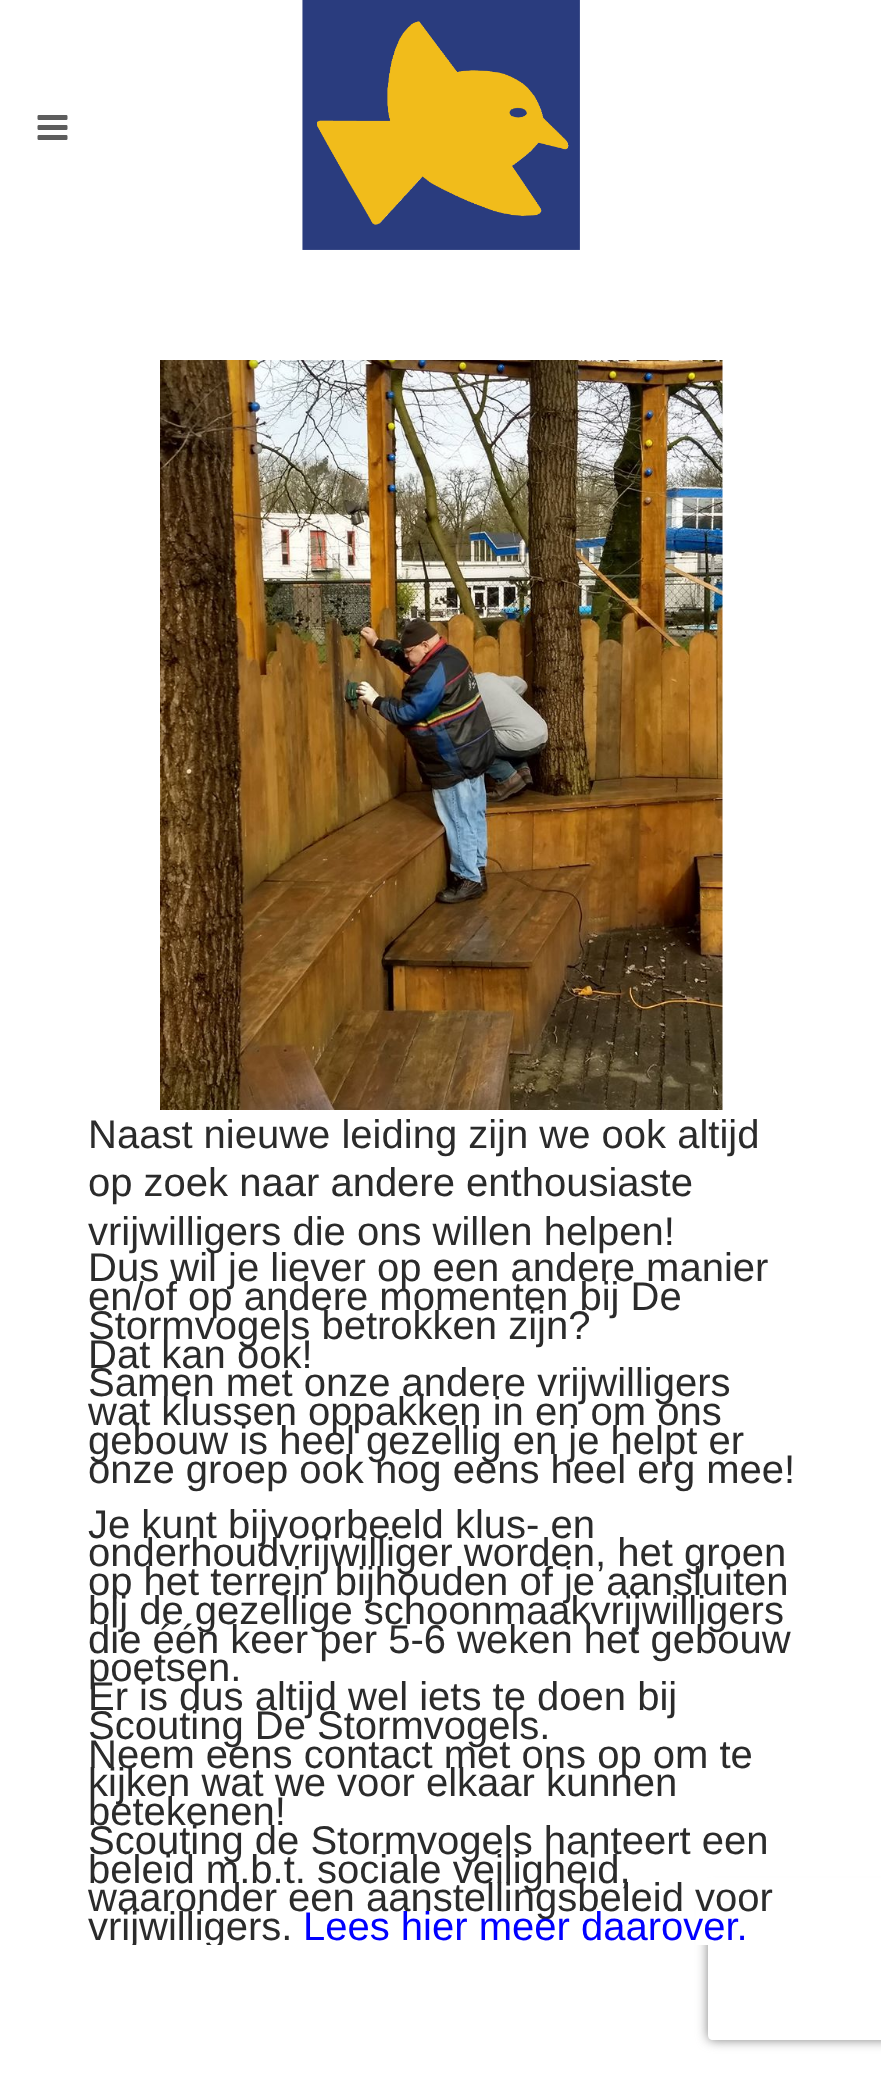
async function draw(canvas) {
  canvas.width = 881;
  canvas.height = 2075;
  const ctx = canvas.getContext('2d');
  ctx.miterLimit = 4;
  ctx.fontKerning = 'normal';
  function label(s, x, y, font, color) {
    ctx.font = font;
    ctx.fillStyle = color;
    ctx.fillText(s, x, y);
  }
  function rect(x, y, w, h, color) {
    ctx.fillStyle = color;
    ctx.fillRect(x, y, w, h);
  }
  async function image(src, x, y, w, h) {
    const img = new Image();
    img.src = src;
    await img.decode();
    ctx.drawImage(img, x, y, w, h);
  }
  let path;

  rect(0, 0, 881, 2075, '#fff');
  ctx.save();
  path = new Path2D('M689 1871H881V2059H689ZM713 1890H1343C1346 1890 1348 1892 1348 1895V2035C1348 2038 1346 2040 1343 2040H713C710 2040 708 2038 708 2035V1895C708 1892 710 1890 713 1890Z');
  ctx.clip(path, 'evenodd');
  ctx.fillStyle = '#808080';
  ctx.filter = 'blur(6px)';
  ctx.beginPath();
  ctx.roundRect(708, 1890, 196, 150, 5);
  ctx.fill();
  ctx.filter = 'none';
  ctx.restore();
  rect(696, 1878, 185, 67, '#fff');
  await image('assets/img1.png', 37, 115, 31, 25);
  await image('assets/img2.png', 302, 0, 278, 250);
  await image('assets/img3.png', 160, 360, 563, 750);
  label('Naast nieuwe leiding zijn we ook altijd', 88, 1148, '40px Liberation Sans', '#2b2b2b');
  label('op zoek naar andere enthousiaste', 88, 1196, '40px Liberation Sans', '#2b2b2b');
  label('vrijwilligers die ons willen helpen!', 88, 1245, '40px Liberation Sans', '#2b2b2b');
  label('Dus wil je liever op een andere manier', 88, 1281, '40px Liberation Sans', '#2b2b2b');
  label('en/of op andere momenten bij De', 88, 1310, '40px Liberation Sans', '#2b2b2b');
  label('Stormvogels betrokken zijn?', 88, 1339, '40px Liberation Sans', '#2b2b2b');
  label('Dat kan ook!', 88, 1368, '40px Liberation Sans', '#2b2b2b');
  label('Samen met onze andere vrijwilligers', 88, 1396, '40px Liberation Sans', '#2b2b2b');
  label('wat klussen oppakken in en om ons', 88, 1425, '40px Liberation Sans', '#2b2b2b');
  label('gebouw is heel gezellig en je helpt er', 88, 1454, '40px Liberation Sans', '#2b2b2b');
  label('onze groep ook nog eens heel erg mee!', 88, 1483, '40px Liberation Sans', '#2b2b2b');
  label('Je kunt bijvoorbeeld klus- en', 88, 1538, '40px Liberation Sans', '#2b2b2b');
  label('onderhoudvrijwilliger worden, het groen', 88, 1566, '40px Liberation Sans', '#2b2b2b');
  label('op het terrein bijhouden of je aansluiten', 88, 1595, '40px Liberation Sans', '#2b2b2b');
  label('bij de gezellige schoonmaakvrijwilligers', 88, 1624, '40px Liberation Sans', '#2b2b2b');
  label('die één keer per 5-6 weken het gebouw', 88, 1653, '40px Liberation Sans', '#2b2b2b');
  label('poetsen.', 88, 1681, '40px Liberation Sans', '#2b2b2b');
  label('Er is dus altijd wel iets te doen bij', 88, 1710, '40px Liberation Sans', '#2b2b2b');
  label('Scouting De Stormvogels.', 88, 1739, '40px Liberation Sans', '#2b2b2b');
  label('Neem eens contact met ons op om te', 88, 1768, '40px Liberation Sans', '#2b2b2b');
  label('kijken wat we voor elkaar kunnen', 88, 1796, '40px Liberation Sans', '#2b2b2b');
  label('betekenen!', 88, 1825, '40px Liberation Sans', '#2b2b2b');
  label('Scouting de Stormvogels hanteert een', 88, 1854, '40px Liberation Sans', '#2b2b2b');
  label('beleid m.b.t. sociale veiligheid,', 88, 1883, '40px Liberation Sans', '#2b2b2b');
  label('waaronder een aanstellingsbeleid voor', 88, 1911, '40px Liberation Sans', '#2b2b2b');
  ctx.save();
  ctx.beginPath();
  ctx.rect(0, 0, 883, 1945);
  ctx.clip();
  label('vrijwilligers.', 88, 1940, '40px Liberation Sans', '#2b2b2b');
  ctx.restore();
  label('Lees hier meer daarover.', 303, 1940, '40px Liberation Sans', '#00f');
}

draw(document.querySelector('canvas'));
